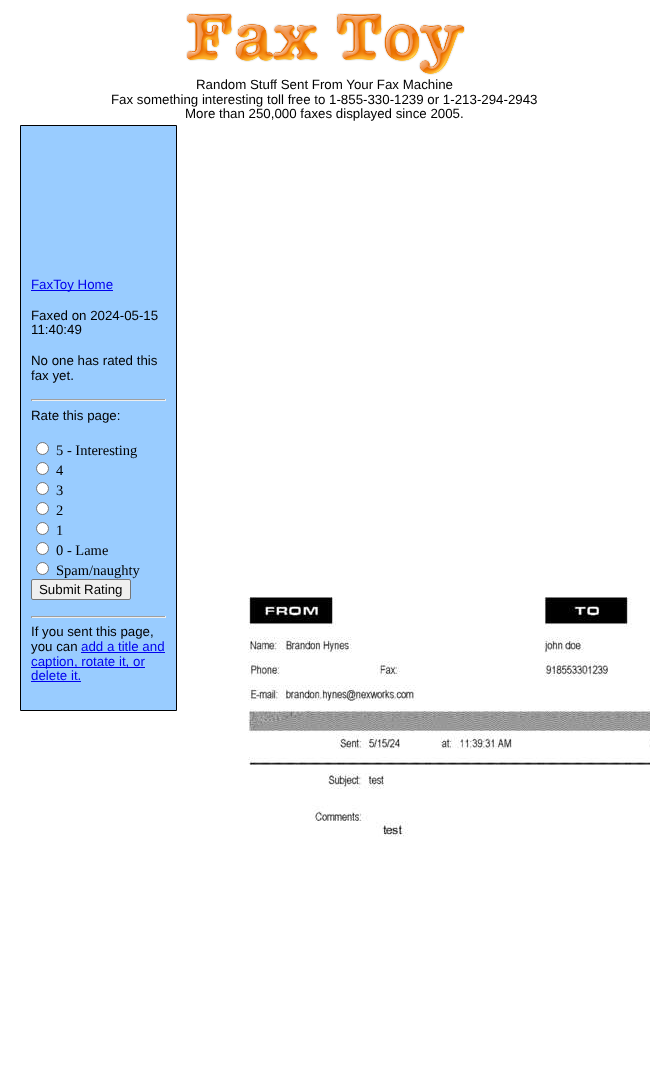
async function draw(canvas) {
  canvas.width = 650;
  canvas.height = 1084;
  const ctx = canvas.getContext('2d');
  ctx.miterLimit = 4;
  ctx.fontKerning = 'normal';
  function label(s, x, y, font, color) {
    ctx.font = font;
    ctx.fillStyle = color;
    ctx.fillText(s, x, y);
  }
  function rect(x, y, w, h, color) {
    ctx.fillStyle = color;
    ctx.fillRect(x, y, w, h);
  }
  async function image(src, x, y, w, h) {
    const img = new Image();
    img.src = src;
    await img.decode();
    ctx.drawImage(img, x, y, w, h);
  }

  rect(0, 0, 650, 1084, '#fff');
  await image('assets/img1.png', 186, 13, 279, 62);
  label('Random Stuff Sent From Your Fax Machine', 196, 89, '13.3px Liberation Sans', '#000');
  label('Fax something interesting toll free to 1-855-330-1239 or 1-213-294-2943', 111, 104, '13.3px Liberation Sans', '#000');
  label('More than 250,000 faxes displayed since 2005.', 185, 118, '13.3px Liberation Sans', '#000');
  ctx.fillStyle = '#9cf';
  ctx.beginPath();
  ctx.rect(20.5, 125.5, 156, 585);
  ctx.fill();
  ctx.strokeStyle = '#000';
  ctx.stroke();
  rect(31, 290, 82, 1, '#00e');
  label('FaxToy Home', 31, 289, '13.3px Liberation Sans', '#00e');
  label('Faxed on 2024-05-15', 31, 320, '13.3px Liberation Sans', '#000');
  label('11:40:49', 31, 334, '13.3px Liberation Sans', '#000');
  label('No one has rated this', 31, 365, '13.3px Liberation Sans', '#000');
  label('fax yet.', 31, 380, '13.3px Liberation Sans', '#000');
  rect(31, 399, 135, 1, '#9f9f9f');
  rect(165, 399, 1, 2, '#eee');
  rect(31, 400, 135, 1, '#eee');
  rect(31, 399, 1, 2, '#9f9f9f');
  label('Rate this page:', 31, 420, '13.3px Liberation Sans', '#000');
  ctx.fillStyle = '#fff';
  ctx.beginPath();
  ctx.arc(42.5, 448.5, 6, 0, 2 * Math.PI);
  ctx.fill();
  ctx.strokeStyle = '#767676';
  ctx.stroke();
  label('5 - Interesting', 56, 455, '14.5px Liberation Serif', '#000');
  ctx.fillStyle = '#fff';
  ctx.beginPath();
  ctx.arc(42.5, 468.5, 6, 0, 2 * Math.PI);
  ctx.fill();
  ctx.stroke();
  label('4', 56, 475, '14.5px Liberation Serif', '#000');
  ctx.fillStyle = '#fff';
  ctx.beginPath();
  ctx.arc(42.5, 488.5, 6, 0, 2 * Math.PI);
  ctx.fill();
  ctx.stroke();
  label('3', 56, 495, '14.5px Liberation Serif', '#000');
  ctx.fillStyle = '#fff';
  ctx.beginPath();
  ctx.arc(42.5, 508.5, 6, 0, 2 * Math.PI);
  ctx.fill();
  ctx.stroke();
  label('2', 56, 515, '14.5px Liberation Serif', '#000');
  ctx.fillStyle = '#fff';
  ctx.beginPath();
  ctx.arc(42.5, 528.5, 6, 0, 2 * Math.PI);
  ctx.fill();
  ctx.stroke();
  label('1', 56, 535, '14.5px Liberation Serif', '#000');
  ctx.fillStyle = '#fff';
  ctx.beginPath();
  ctx.arc(42.5, 548.5, 6, 0, 2 * Math.PI);
  ctx.fill();
  ctx.stroke();
  label('0 - Lame', 56, 555, '14.5px Liberation Serif', '#000');
  ctx.fillStyle = '#fff';
  ctx.beginPath();
  ctx.arc(42.5, 568.5, 6, 0, 2 * Math.PI);
  ctx.fill();
  ctx.stroke();
  label('Spam/naughty', 56, 575, '14.5px Liberation Serif', '#000');
  ctx.fillStyle = '#efefef';
  ctx.beginPath();
  ctx.roundRect(31.5, 579.5, 99, 20, 1.5);
  ctx.fill();
  ctx.stroke();
  label('Submit Rating', 39, 594, '13.3px Liberation Sans', '#000');
  rect(31, 616, 135, 1, '#9f9f9f');
  rect(165, 616, 1, 2, '#eee');
  rect(31, 617, 135, 1, '#eee');
  rect(31, 616, 1, 2, '#9f9f9f');
  label('If you sent this page,', 31, 636, '13.3px Liberation Sans', '#000');
  label('you can', 31, 651, '13.3px Liberation Sans', '#000');
  label('add a title and', 81, 651, '13.3px Liberation Sans', '#00e');
  rect(81, 652, 84, 1, '#00e');
  rect(31, 667, 114, 1, '#00e');
  label('caption, rotate it, or', 31, 666, '13.3px Liberation Sans', '#00e');
  label('delete it.', 31, 680, '13.3px Liberation Sans', '#00e');
  rect(31, 681, 50, 1, '#00e');
  await image('assets/img2.png', 248, 597, 402, 240);
}

draw(document.querySelector('canvas'));
